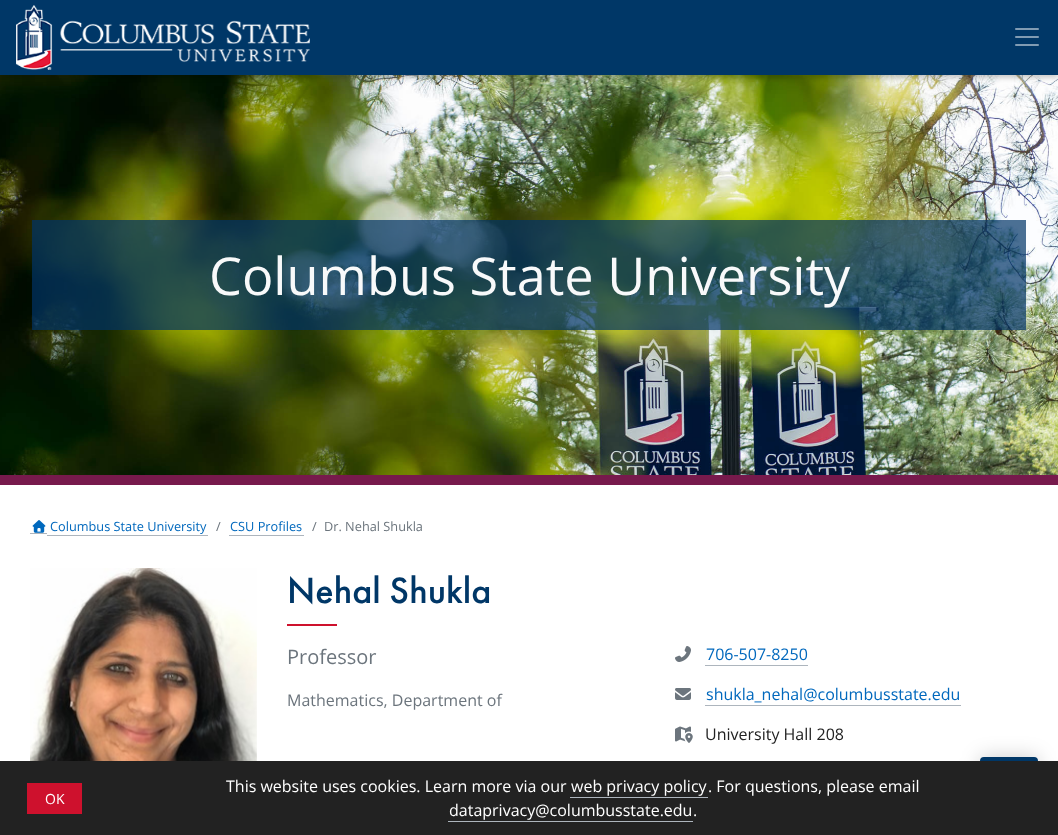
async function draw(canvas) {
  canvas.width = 1058;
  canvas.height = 835;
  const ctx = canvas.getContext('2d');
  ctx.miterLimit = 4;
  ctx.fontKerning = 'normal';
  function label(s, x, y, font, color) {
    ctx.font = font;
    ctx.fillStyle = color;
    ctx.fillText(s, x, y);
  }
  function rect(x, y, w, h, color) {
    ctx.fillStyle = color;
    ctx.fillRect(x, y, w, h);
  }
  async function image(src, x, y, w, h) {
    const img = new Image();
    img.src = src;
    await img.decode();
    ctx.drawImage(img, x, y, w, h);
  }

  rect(0, 0, 1058, 835, '#fff');
  await image('assets/img3.png', 0, 75, 1058, 400);
  ctx.fillStyle = '#00000033';
  ctx.filter = 'blur(2.5px)';
  ctx.beginPath();
  ctx.rect(0, 3, 1058, 75);
  ctx.fill();
  ctx.filter = 'none';
  rect(0, 0, 1058, 75, '#003767');
  await image('assets/img1.png', 16, 5, 294, 65);
  await image('assets/img2.png', 1015, 28, 24, 18);
  rect(32, 220, 994, 110, '#003366b3');
  label('Columbus State University', 209, 295, '52.25px Open Sans', '#f8f9fa');
  rect(0, 475, 1058, 10, '#771a4c');
  rect(30, 533, 17, 1, '#adb5bd');
  rect(47, 535, 161, 1, '#adb5bd');
  await image('assets/img4.png', 32, 520, 14, 13);
  label('Columbus State University', 50, 531, '12.75px Open Sans', '#0068bd');
  label('/', 216, 531, '12.75px Open Sans', '#6c757d');
  label('CSU Profiles', 230, 531, '12.75px Open Sans', '#0068bd');
  rect(229, 535, 75, 1, '#adb5bd');
  label('/', 312, 531, '12.75px Open Sans', '#6c757d');
  label('Dr. Nehal Shukla', 324, 531, '12.75px Open Sans', '#6c757d');
  await image('assets/img5.png', 30, 568, 227, 193);
  label('Nehal Shukla', 287, 603, '500 38px Futura PT', '#003767');
  rect(287, 624, 50, 2, '#ce112d');
  label('Professor', 287, 664, '20px Open Sans', '#6c757d');
  label('Mathematics, Department of', 287, 706, '16px Open Sans', '#6c757d');
  await image('assets/img6.png', 675, 646, 16, 16);
  label('706-507-8250', 706, 660, '16px Open Sans', '#0068bd');
  rect(705, 665, 103, 1, '#adb5bd');
  await image('assets/img7.png', 675, 688, 16, 12);
  label('shukla_nehal@columbusstate.edu', 706, 700, '16px Open Sans', '#0068bd');
  rect(705, 705, 256, 1, '#adb5bd');
  await image('assets/img8.png', 675, 726, 18, 17);
  label('University Hall 208', 705, 740, '16px Open Sans', '#222');
  ctx.fillStyle = '#00000033';
  ctx.filter = 'blur(10px)';
  ctx.beginPath();
  ctx.roundRect(980, 757, 58, 58, 4);
  ctx.fill();
  ctx.filter = 'none';
  ctx.fillStyle = '#003767';
  ctx.beginPath();
  ctx.roundRect(981, 758, 56, 56, 3);
  ctx.fill();
  ctx.strokeStyle = '#003767';
  ctx.lineWidth = 2;
  ctx.stroke();
  rect(0, 761, 1058, 74, '#222');
  rect(27, 783, 55, 31, '#ce112d');
  label('OK', 45, 804, '14px Open Sans', '#fff');
  label('This website uses cookies. Learn more via our', 226, 792, '16px Open Sans', '#fff');
  label('web privacy policy', 571, 792, '16px Open Sans', '#fff');
  rect(570, 797, 138, 1, '#adb5bd');
  label('. For questions, please email', 708, 792, '16px Open Sans', '#fff');
  label('dataprivacy@columbusstate.edu', 449, 816, '16px Open Sans', '#fff');
  rect(448, 821, 245, 1, '#adb5bd');
  label('.', 693, 816, '16px Open Sans', '#fff');
}

draw(document.querySelector('canvas'));
